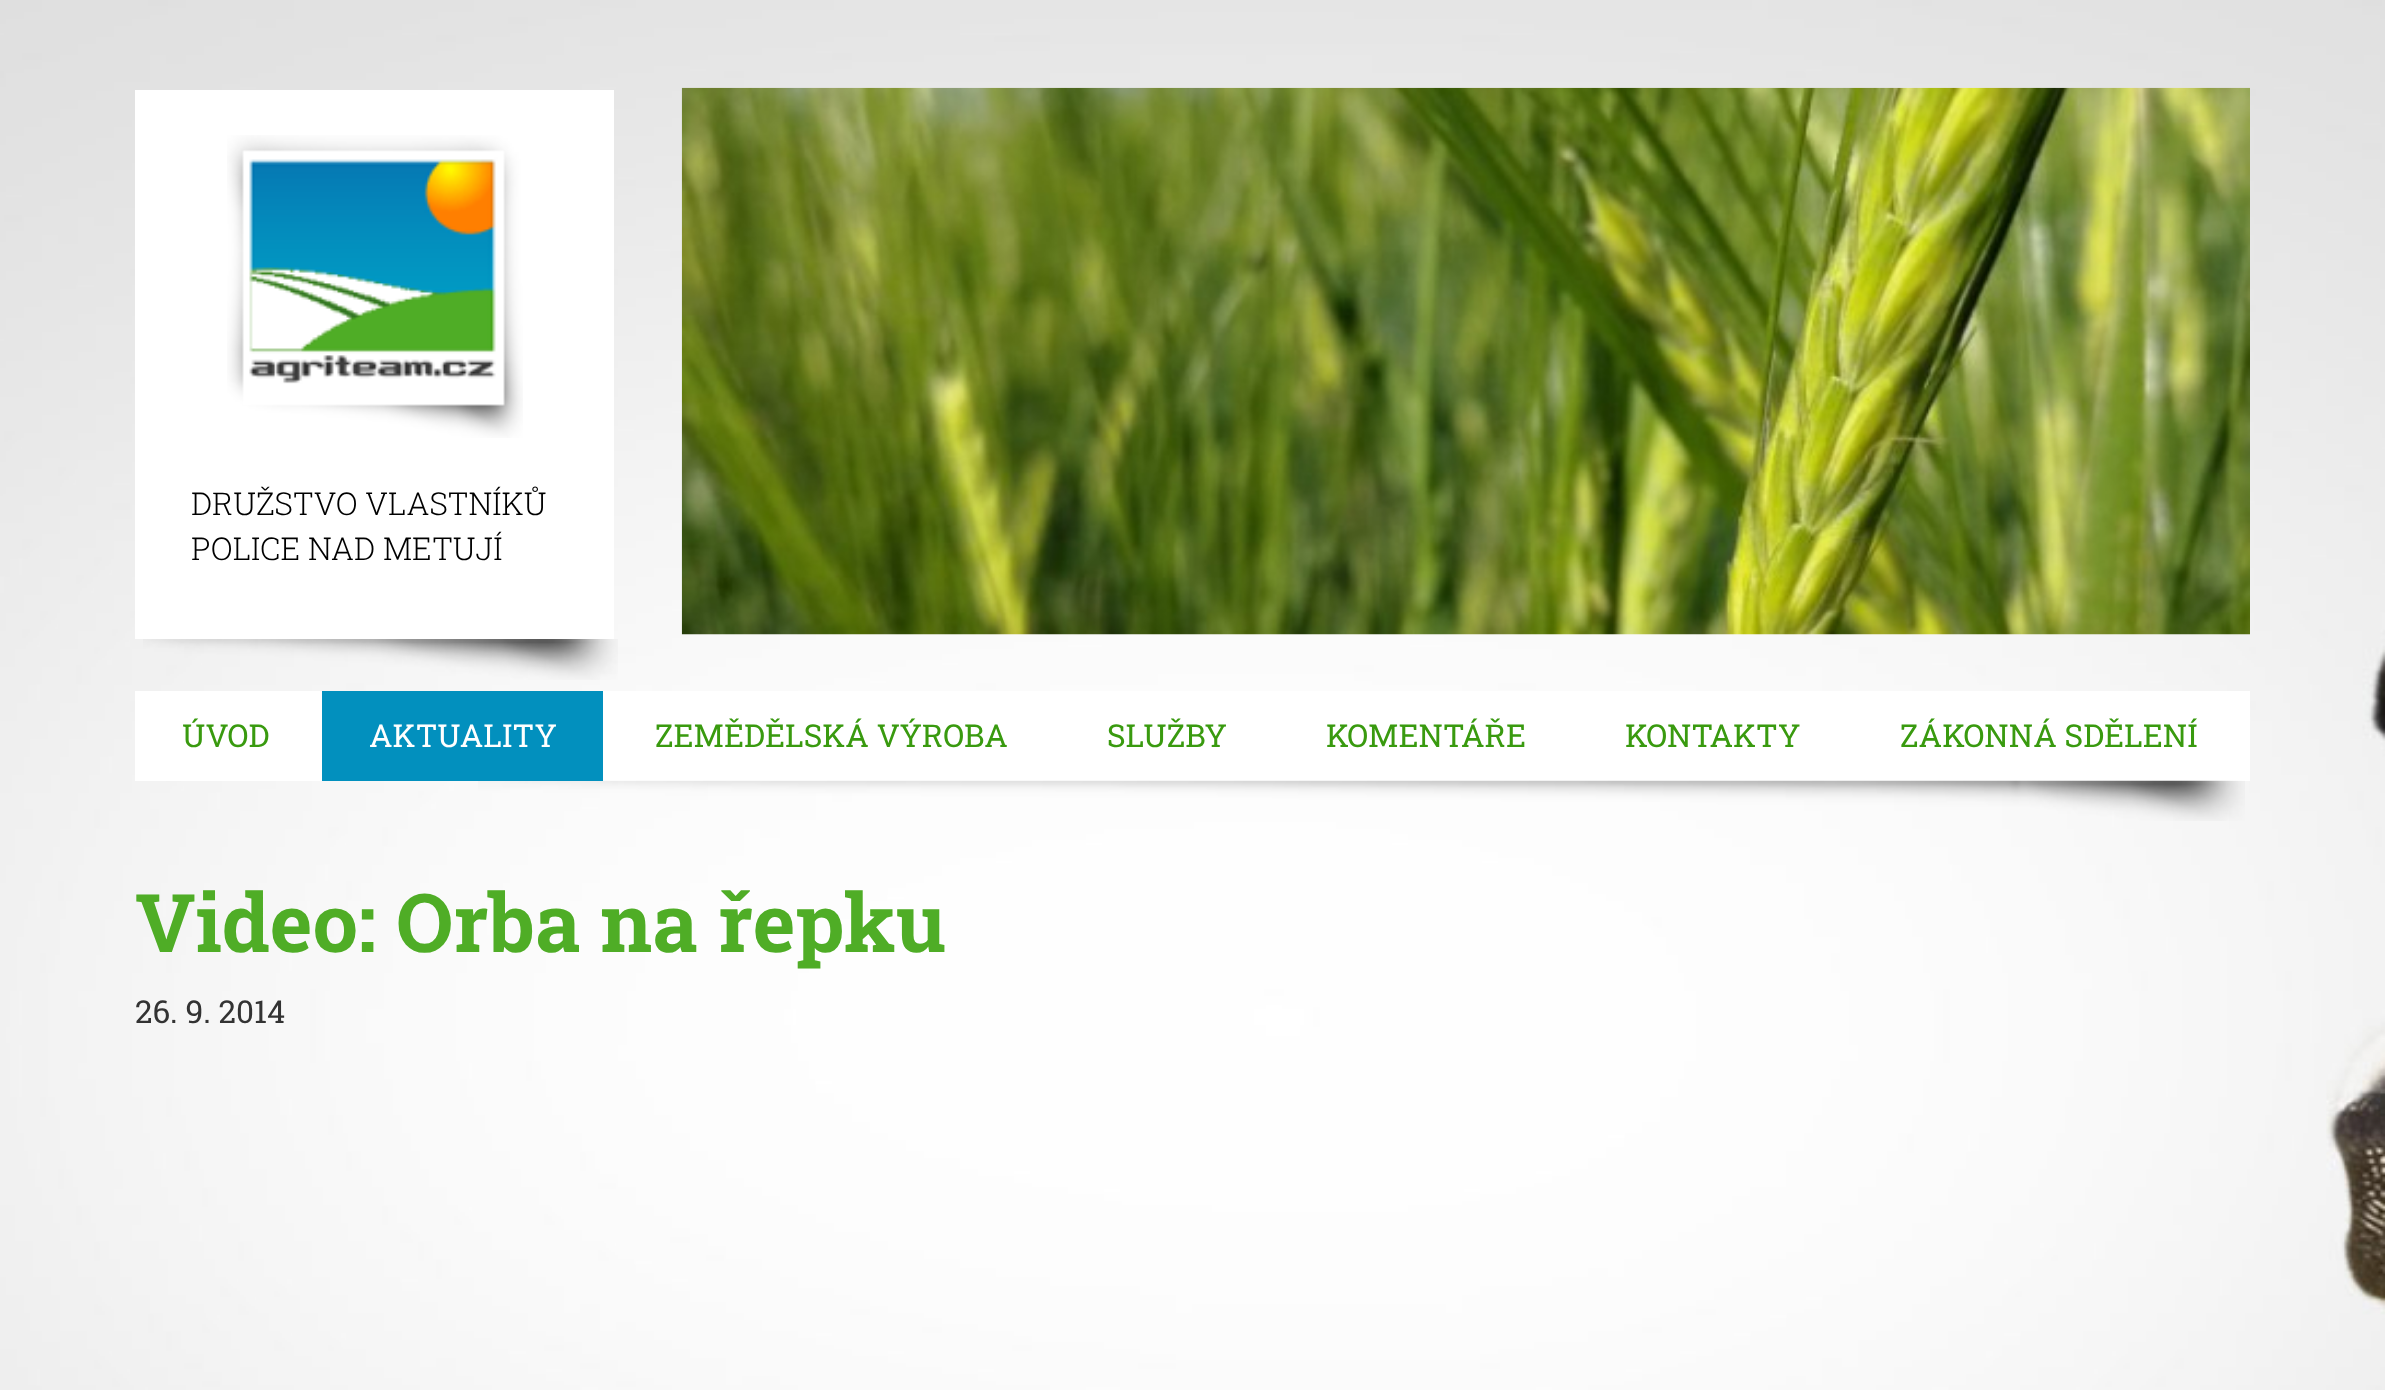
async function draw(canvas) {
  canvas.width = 2385;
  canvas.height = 1390;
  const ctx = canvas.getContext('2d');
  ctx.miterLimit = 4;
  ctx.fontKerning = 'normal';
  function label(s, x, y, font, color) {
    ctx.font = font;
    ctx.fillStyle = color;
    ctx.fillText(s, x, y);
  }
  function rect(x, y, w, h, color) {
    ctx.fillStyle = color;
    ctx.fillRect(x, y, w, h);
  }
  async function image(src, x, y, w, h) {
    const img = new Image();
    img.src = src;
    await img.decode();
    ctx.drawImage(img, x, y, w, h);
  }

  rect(0, 0, 2385, 1390, '#fff');
  await image('assets/img1.png', 0, 0, 2385, 1390);
  rect(135, 90, 479, 549, '#fff');
  await image('assets/img2.png', 227, 135, 296, 303);
  label('DRUŽSTVO VLASTNÍKŮ', 191, 515, '300 31.5px Roboto Slab', '#000');
  label('POLICE NAD METUJÍ', 191, 560, '300 31.5px Roboto Slab', '#000');
  await image('assets/img3.png', 143, 639, 475, 41);
  await image('assets/img4.png', 681, 87, 1569, 548);
  rect(135, 691, 2115, 90, '#fff');
  label('ÚVOD', 182, 747, '31.5px Roboto Slab', '#399a0f');
  await image('assets/img5.png', 478, 780, 1767, 41);
  rect(322, 691, 281, 90, '#0290be');
  label('AKTUALITY', 369, 747, '31.5px Roboto Slab', '#fff');
  label('ZEMĚDĚLSKÁ VÝROBA', 655, 747, '31.5px Roboto Slab', '#399a0f');
  label('SLUŽBY', 1107, 747, '31.5px Roboto Slab', '#399a0f');
  label('KOMENTÁŘE', 1326, 747, '31.5px Roboto Slab', '#399a0f');
  label('KONTAKTY', 1625, 747, '31.5px Roboto Slab', '#399a0f');
  label('ZÁKONNÁ SDĚLENÍ', 1900, 747, '31.5px Roboto Slab', '#399a0f');
  label('Video: Orba na řepku', 135, 952, 'bold 81px Roboto Slab', '#4fad26');
  label('26. 9. 2014', 135, 1023, '31.5px Roboto Slab', '#333');
}

draw(document.querySelector('canvas'));
